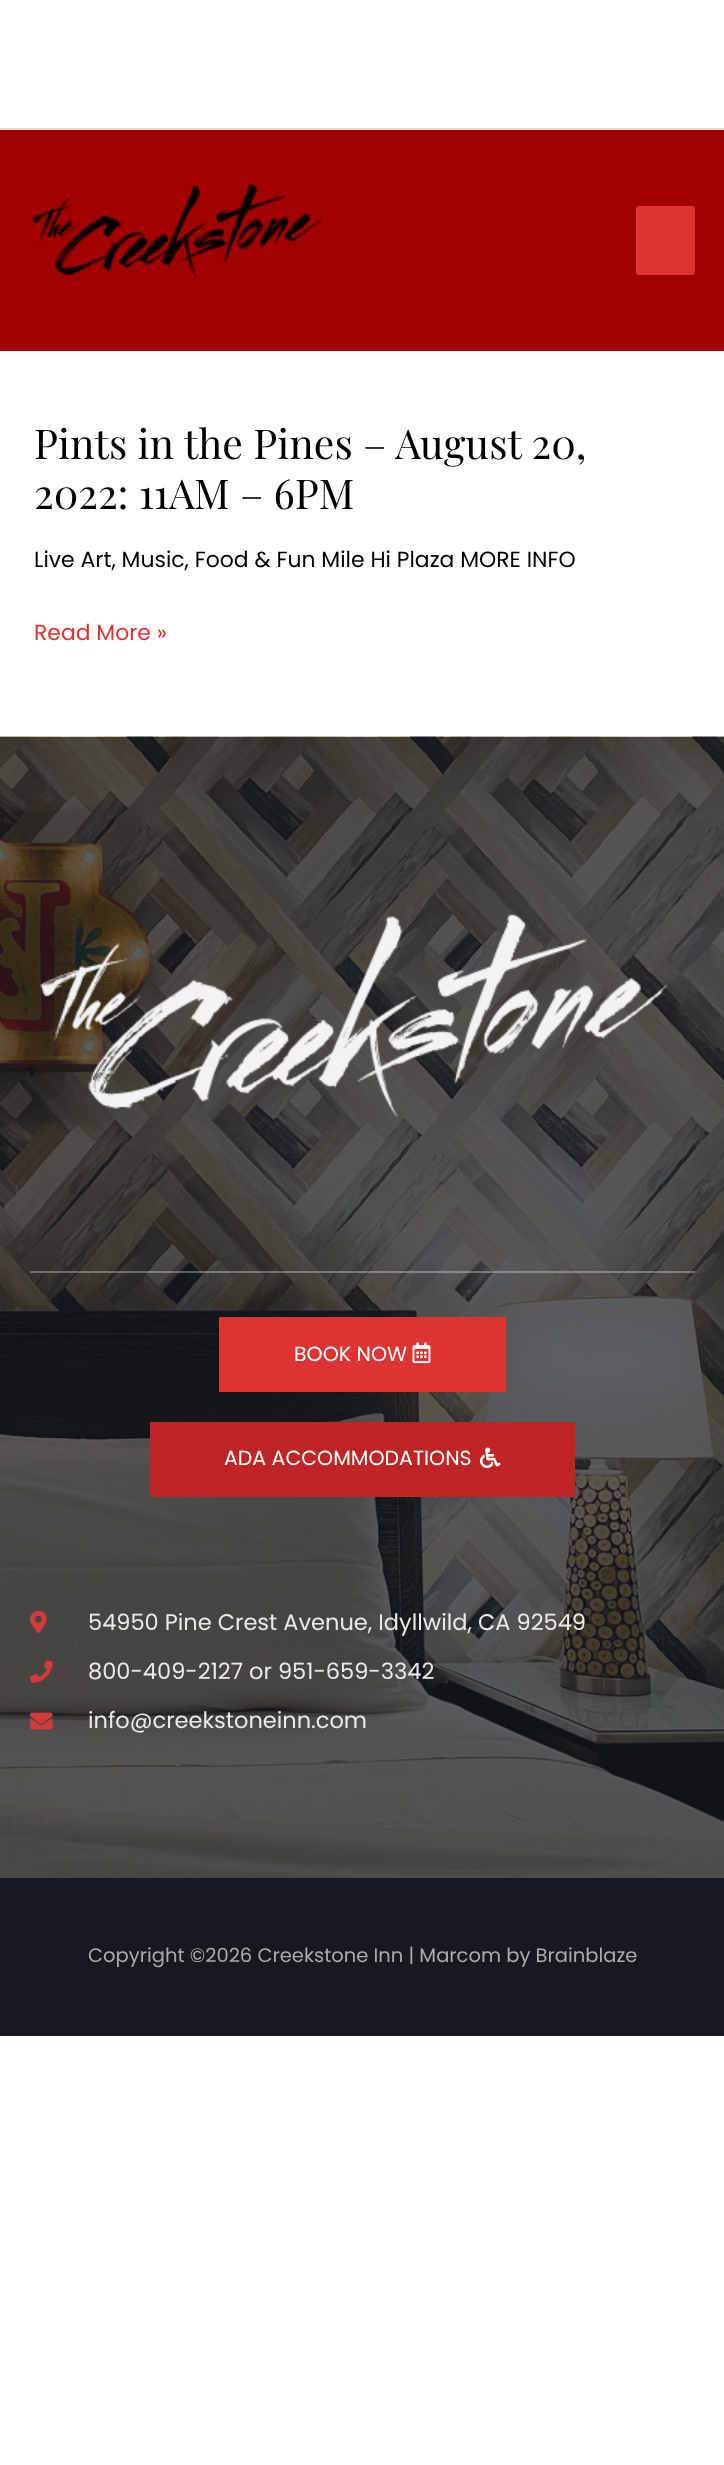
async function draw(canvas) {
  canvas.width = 724;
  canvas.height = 2465;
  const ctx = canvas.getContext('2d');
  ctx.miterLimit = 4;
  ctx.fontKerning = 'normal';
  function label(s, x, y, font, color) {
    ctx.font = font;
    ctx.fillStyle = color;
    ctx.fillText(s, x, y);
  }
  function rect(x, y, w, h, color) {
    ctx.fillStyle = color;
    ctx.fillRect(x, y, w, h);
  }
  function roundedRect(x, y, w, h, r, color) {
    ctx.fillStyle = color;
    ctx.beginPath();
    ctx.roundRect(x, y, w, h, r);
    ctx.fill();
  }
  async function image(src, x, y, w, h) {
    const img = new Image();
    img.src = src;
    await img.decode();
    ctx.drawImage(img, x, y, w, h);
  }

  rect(0, 0, 724, 2465, '#fff');
  rect(0, 128, 724, 2, '#ddd');
  rect(0, 130, 724, 221, '#a10101');
  await image('assets/img1.png', 32, 184, 291, 96);
  roundedRect(636, 206, 59, 69, 3, '#d33');
  label('Pints in the Pines – August 20,', 34, 459, '41px Playfair Display', '#000');
  label('2022: 11AM – 6PM', 34, 509, '41px Playfair Display', '#000');
  label('Live Art, Music, Food & Fun Mile Hi Plaza MORE INFO', 34, 567, '21.9px Poppins', '#000');
  label('Read More »', 34, 640, '21.9px Poppins', '#d33');
  await image('assets/img2.png', 0, 736, 724, 1142);
  await image('assets/img3.png', 40, 914, 628, 204);
  rect(30, 1271, 665, 2, '#ffffff4d');
  rect(219, 1317, 287, 75, '#d33');
  label('BOOK NOW', 294, 1361, '20.5px Poppins', '#fff');
  await image('assets/img4.png', 412, 1342, 19, 22);
  rect(150, 1422, 425, 75, '#bf2525');
  label('ADA ACCOMMODATIONS', 224, 1465, '20.5px Poppins', '#fff');
  await image('assets/img5.png', 480, 1447, 21, 22);
  await image('assets/img6.png', 30, 1610, 17, 24);
  label('54950 Pine Crest Avenue, Idyllwild, CA 92549', 88, 1630, '22.5px Poppins', '#eaeaea');
  await image('assets/img7.png', 30, 1660, 23, 23);
  label('800-409-2127 or 951-659-3342', 88, 1679, '22.5px Poppins', '#eaeaea');
  await image('assets/img8.png', 30, 1712, 23, 18);
  label('info@creekstoneinn.com', 88, 1728, '22.5px Poppins', '#eaeaea');
  rect(0, 1878, 724, 158, '#161a20');
  label('Copyright ©2026 Creekstone Inn | Marcom by Brainblaze', 88, 1962, '19.5px Poppins', '#ababac');
}

draw(document.querySelector('canvas'));
